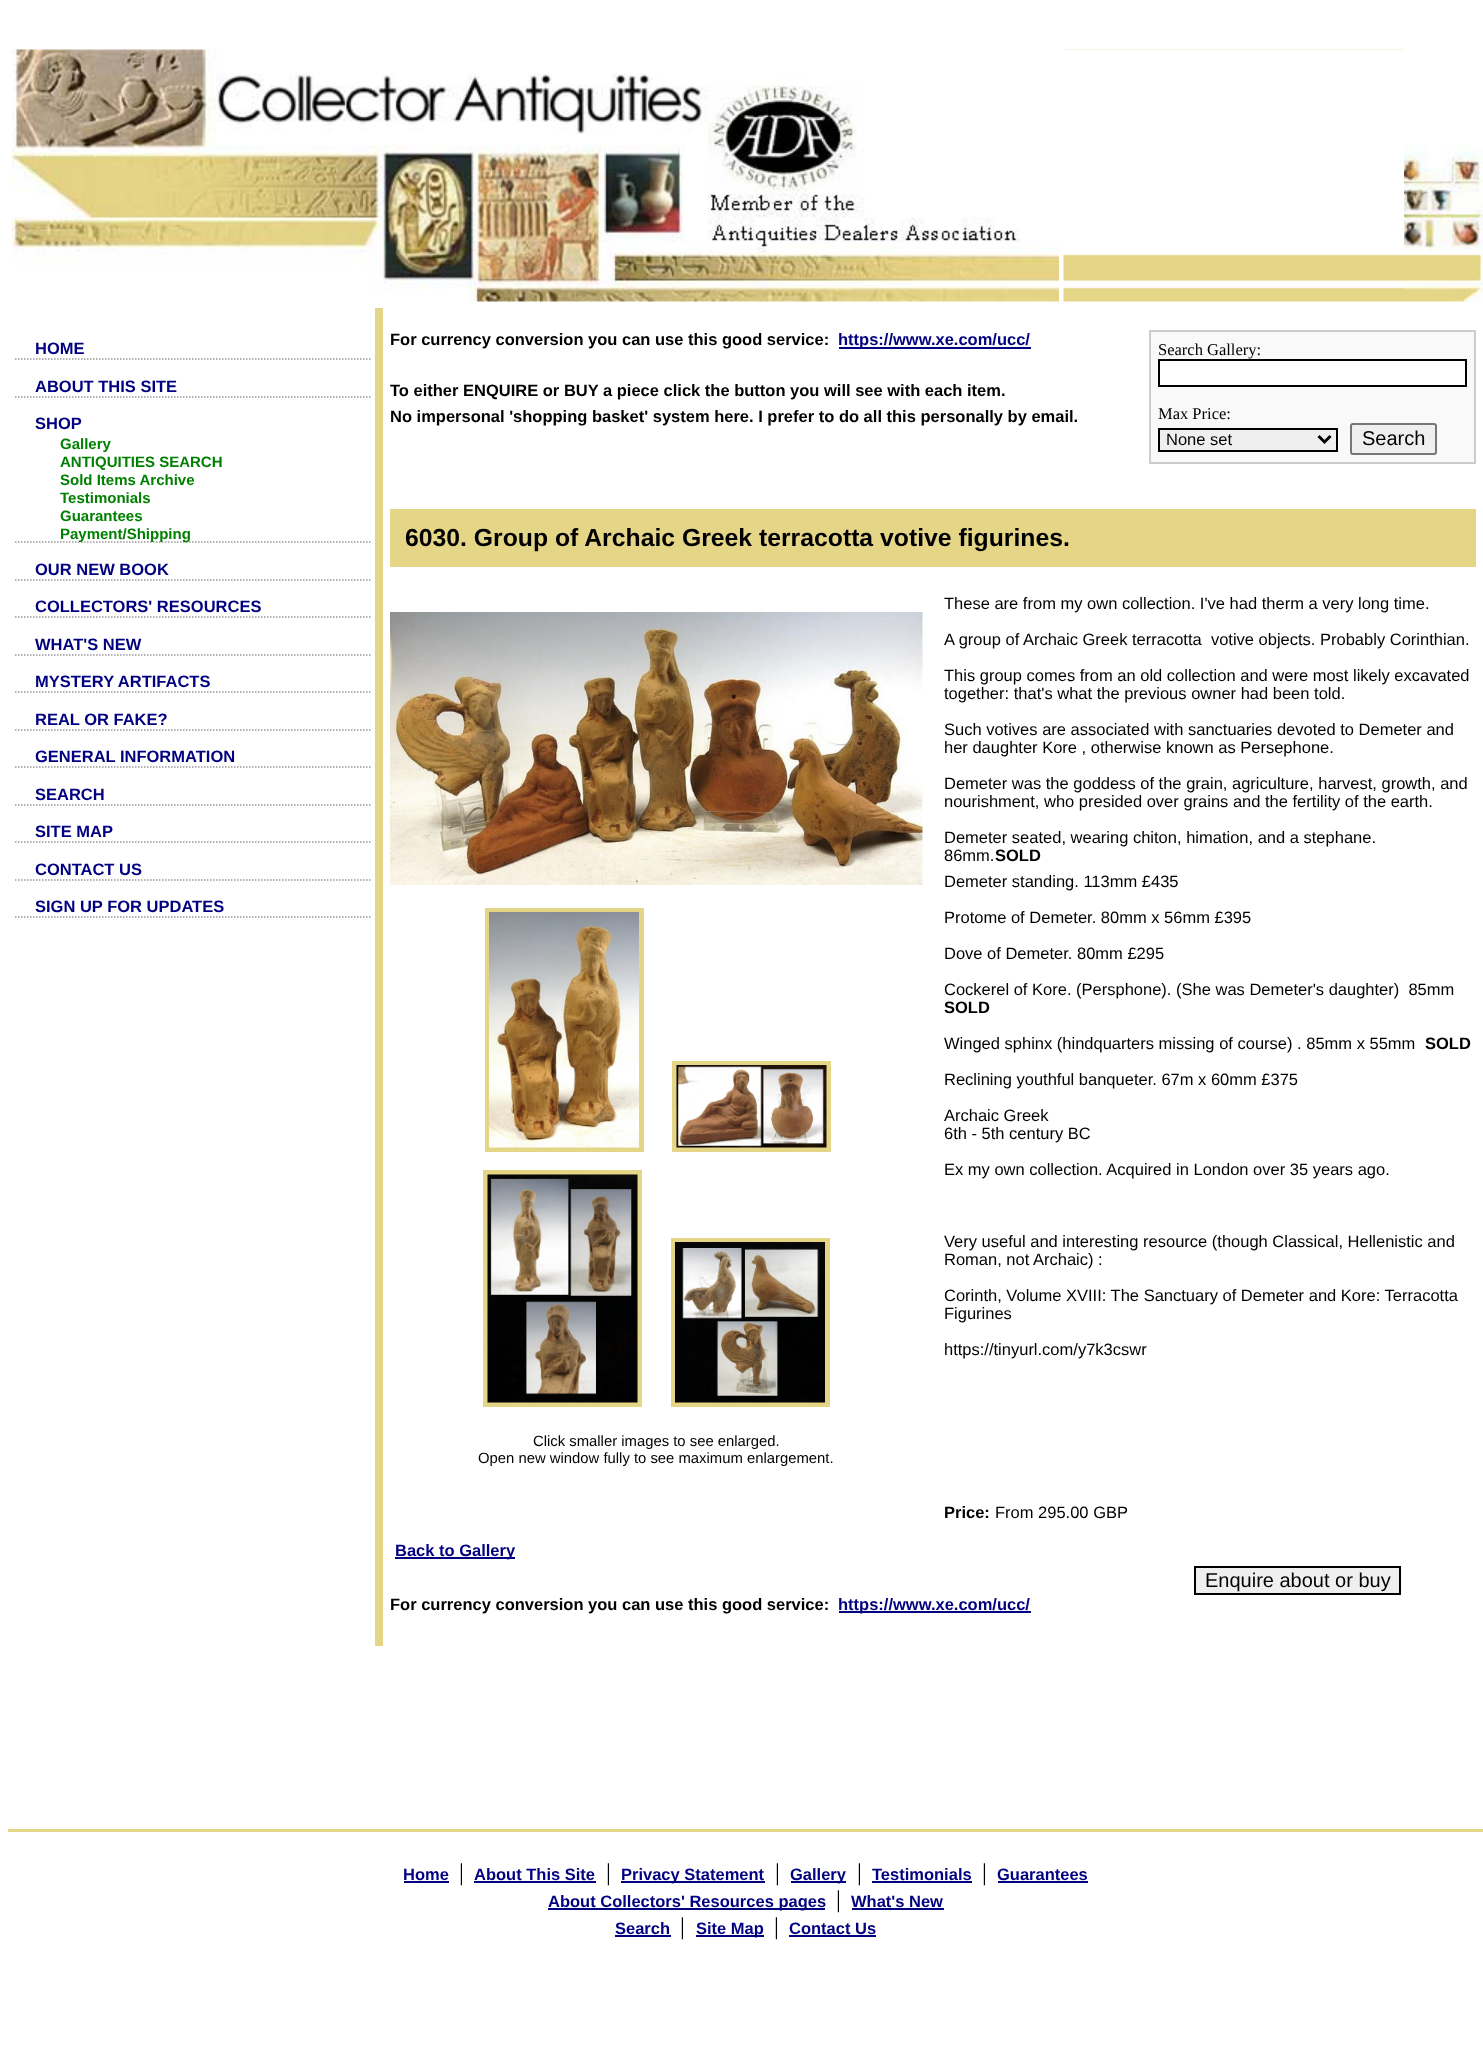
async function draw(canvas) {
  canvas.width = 1483;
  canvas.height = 2061;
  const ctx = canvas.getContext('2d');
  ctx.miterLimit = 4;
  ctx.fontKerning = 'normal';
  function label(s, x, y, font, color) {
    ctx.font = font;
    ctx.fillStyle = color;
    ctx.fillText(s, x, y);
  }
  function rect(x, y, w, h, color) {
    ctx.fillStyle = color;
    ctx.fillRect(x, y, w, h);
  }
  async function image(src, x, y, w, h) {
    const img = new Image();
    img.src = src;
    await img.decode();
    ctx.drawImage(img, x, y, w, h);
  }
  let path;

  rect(0, 0, 1483, 2061, '#fff');
  await image('assets/img1.png', 12, 49, 1047, 253);
  await image('assets/img2.png', 1063, 49, 341, 253);
  await image('assets/img3.png', 1404, 145, 79, 157);
  rect(375, 308, 8, 1338, '#e5d587');
  path = new Path2D('M15 359H372');
  ctx.strokeStyle = '#999';
  ctx.lineWidth = 1.5;
  ctx.setLineDash([1.5, 1.5]);
  ctx.stroke(path);
  label('HOME', 35, 354, 'bold 16.5px Liberation Sans', '#000080');
  path = new Path2D('M15 397H372');
  ctx.stroke(path);
  label('ABOUT THIS SITE', 35, 392, 'bold 16.5px Liberation Sans', '#000080');
  path = new Path2D('M15 542H372');
  ctx.stroke(path);
  label('SHOP', 35, 429, 'bold 16.5px Liberation Sans', '#000080');
  label('Gallery', 60, 449, 'bold 15px Liberation Sans', '#008000');
  label('ANTIQUITIES SEARCH', 60, 467, 'bold 15px Liberation Sans', '#008000');
  label('Sold Items Archive', 60, 485, 'bold 15px Liberation Sans', '#008000');
  label('Testimonials', 60, 503, 'bold 15px Liberation Sans', '#008000');
  label('Guarantees', 60, 521, 'bold 15px Liberation Sans', '#008000');
  label('Payment/Shipping', 60, 539, 'bold 15px Liberation Sans', '#008000');
  path = new Path2D('M15 580H372');
  ctx.stroke(path);
  label('OUR NEW BOOK', 35, 575, 'bold 16.5px Liberation Sans', '#000080');
  path = new Path2D('M15 617H372');
  ctx.stroke(path);
  label('COLLECTORS\' RESOURCES', 35, 612, 'bold 16.5px Liberation Sans', '#000080');
  path = new Path2D('M15 655H372');
  ctx.stroke(path);
  label('WHAT\'S NEW', 35, 650, 'bold 16.5px Liberation Sans', '#000080');
  path = new Path2D('M15 692H372');
  ctx.stroke(path);
  label('MYSTERY ARTIFACTS', 35, 687, 'bold 16.5px Liberation Sans', '#000080');
  path = new Path2D('M15 730H372');
  ctx.stroke(path);
  label('REAL OR FAKE?', 35, 725, 'bold 16.5px Liberation Sans', '#000080');
  path = new Path2D('M15 767H372');
  ctx.stroke(path);
  label('GENERAL INFORMATION', 35, 762, 'bold 16.5px Liberation Sans', '#000080');
  path = new Path2D('M15 805H372');
  ctx.stroke(path);
  label('SEARCH', 35, 800, 'bold 16.5px Liberation Sans', '#000080');
  path = new Path2D('M15 842H372');
  ctx.stroke(path);
  label('SITE MAP', 35, 837, 'bold 16.5px Liberation Sans', '#000080');
  path = new Path2D('M15 880H372');
  ctx.stroke(path);
  label('CONTACT US', 35, 875, 'bold 16.5px Liberation Sans', '#000080');
  path = new Path2D('M15 917H372');
  ctx.stroke(path);
  label('SIGN UP FOR UPDATES', 35, 912, 'bold 16.5px Liberation Sans', '#000080');
  label('For currency conversion you can use this good service:', 390, 345, 'bold 16.5px Liberation Sans', '#000');
  rect(839, 347, 192, 2, '#000080');
  label('https://www.xe.com/ucc/', 838, 345, 'bold 16.5px Liberation Sans', '#000080');
  label('To either ENQUIRE or BUY a piece click the button you will see with each item.', 390, 396, 'bold 16.5px Liberation Sans', '#000');
  label('No impersonal \'shopping basket\' system here. I prefer to do all this personally by email.', 390, 422, 'bold 16.5px Liberation Sans', '#000');
  ctx.fillStyle = '#f9f9f9';
  ctx.beginPath();
  ctx.rect(1150, 331, 325, 132);
  ctx.fill();
  ctx.strokeStyle = '#ccc';
  ctx.lineWidth = 2;
  ctx.setLineDash([]);
  ctx.stroke();
  label('Search Gallery:', 1158, 355, '16.5px Liberation Serif', '#000');
  ctx.fillStyle = '#fff';
  ctx.beginPath();
  ctx.rect(1159, 360, 307, 26);
  ctx.fill();
  ctx.strokeStyle = '#000';
  ctx.stroke();
  label('Max Price:', 1158, 419, '16.5px Liberation Serif', '#000');
  ctx.fillStyle = '#efefef';
  ctx.beginPath();
  ctx.rect(1159, 429, 178, 22);
  ctx.fill();
  ctx.stroke();
  path = new Path2D('M1318.5 436L1324.5 442L1330.5 436');
  ctx.lineWidth = 3;
  ctx.stroke(path);
  label('None set', 1166, 445, '16.5px Liberation Sans', '#000');
  ctx.fillStyle = '#efefef';
  ctx.beginPath();
  ctx.roundRect(1351, 424, 85, 30, 2);
  ctx.fill();
  ctx.strokeStyle = '#767676';
  ctx.lineWidth = 2;
  ctx.stroke();
  label('Search', 1362, 445, '20px Liberation Sans', '#000');
  rect(390, 509, 1086, 58, '#e5d587');
  label('6030. Group of Archaic Greek terracotta votive figurines.', 405, 546, 'bold 24.75px Liberation Sans', '#000');
  await image('assets/img4.png', 390, 612, 533, 273);
  ctx.strokeStyle = '#e5d587';
  ctx.lineWidth = 5;
  ctx.strokeRect(487.5, 910.5, 154, 239);
  await image('assets/img5.png', 489, 912, 150, 236);
  ctx.strokeRect(674.5, 1063.5, 154, 86);
  await image('assets/img6.png', 676, 1065, 151, 83);
  ctx.strokeRect(485.5, 1172.5, 154, 232);
  await image('assets/img7.png', 487, 1174, 151, 229);
  ctx.strokeRect(673.5, 1240.5, 154, 164);
  await image('assets/img8.png', 675, 1242, 150, 161);
  label('Click smaller images to see enlarged.', 533, 1446, '14.85px Liberation Sans', '#000');
  label('Open new window fully to see maximum enlargement.', 478, 1463, '14.85px Liberation Sans', '#000');
  rect(395, 1557, 120, 2, '#000080');
  label('Back to Gallery', 395, 1556, 'bold 16.5px Liberation Sans', '#000080');
  label('These are from my own collection. I\'ve had therm a very long time.', 944, 609, '16.5px Liberation Sans', '#000');
  label('A group of Archaic Greek terracotta  votive objects. Probably Corinthian.', 944, 645, '16.5px Liberation Sans', '#000');
  label('This group comes from an old collection and were most likely excavated', 944, 681, '16.5px Liberation Sans', '#000');
  label('together: that\'s what the previous owner had been told.', 944, 699, '16.5px Liberation Sans', '#000');
  label('Such votives are associated with sanctuaries devoted to Demeter and', 944, 735, '16.5px Liberation Sans', '#000');
  label('her daughter Kore , otherwise known as Persephone.', 944, 753, '16.5px Liberation Sans', '#000');
  label('Demeter was the goddess of the grain, agriculture, harvest, growth, and', 944, 789, '16.5px Liberation Sans', '#000');
  label('nourishment, who presided over grains and the fertility of the earth.', 944, 807, '16.5px Liberation Sans', '#000');
  label('Demeter seated, wearing chiton, himation, and a stephane.', 944, 843, '16.5px Liberation Sans', '#000');
  label('86mm.', 944, 861, '16.5px Liberation Sans', '#000');
  label('SOLD', 995, 861, 'bold 16.5px Liberation Sans', '#000');
  label('Demeter standing. 113mm £435', 944, 887, '16.5px Liberation Sans', '#000');
  label('Protome of Demeter. 80mm x 56mm £395', 944, 923, '16.5px Liberation Sans', '#000');
  label('Dove of Demeter. 80mm £295', 944, 959, '16.5px Liberation Sans', '#000');
  label('Cockerel of Kore. (Persphone). (She was Demeter\'s daughter)  85mm', 944, 995, '16.5px Liberation Sans', '#000');
  label('SOLD', 944, 1013, 'bold 16.5px Liberation Sans', '#000');
  label('Winged sphinx (hindquarters missing of course) . 85mm x 55mm', 944, 1049, '16.5px Liberation Sans', '#000');
  label('SOLD', 1425, 1049, 'bold 16.5px Liberation Sans', '#000');
  label('Reclining youthful banqueter. 67m x 60mm £375', 944, 1085, '16.5px Liberation Sans', '#000');
  label('Archaic Greek', 944, 1121, '16.5px Liberation Sans', '#000');
  label('6th - 5th century BC', 944, 1139, '16.5px Liberation Sans', '#000');
  label('Ex my own collection. Acquired in London over 35 years ago.', 944, 1175, '16.5px Liberation Sans', '#000');
  label('Very useful and interesting resource (though Classical, Hellenistic and', 944, 1247, '16.5px Liberation Sans', '#000');
  label('Roman, not Archaic) :', 944, 1265, '16.5px Liberation Sans', '#000');
  label('Corinth, Volume XVIII: The Sanctuary of Demeter and Kore: Terracotta', 944, 1301, '16.5px Liberation Sans', '#000');
  label('Figurines', 944, 1319, '16.5px Liberation Sans', '#000');
  label('https://tinyurl.com/y7k3cswr', 944, 1355, '16.5px Liberation Sans', '#000');
  label('Price:', 944, 1518, 'bold 16.5px Liberation Sans', '#000');
  label('From 295.00 GBP', 995, 1518, '16.5px Liberation Sans', '#000');
  ctx.fillStyle = '#efefef';
  ctx.beginPath();
  ctx.rect(1195, 1567, 205, 27);
  ctx.fill();
  ctx.strokeStyle = '#000';
  ctx.lineWidth = 2;
  ctx.stroke();
  label('Enquire about or buy', 1205, 1587, '20px Liberation Sans', '#000');
  label('For currency conversion you can use this good service:', 390, 1610, 'bold 16.5px Liberation Sans', '#000');
  rect(839, 1611, 192, 2, '#000080');
  label('https://www.xe.com/ucc/', 838, 1610, 'bold 16.5px Liberation Sans', '#000080');
  rect(8, 1829, 1475, 3, '#e5d587');
  label('Home', 403, 1880, 'bold 16.5px Liberation Sans', '#000080');
  rect(404, 1881, 45, 2, '#000080');
  label('|', 459, 1880, '24px Liberation Serif', '#000');
  label('About This Site', 474, 1880, 'bold 16.5px Liberation Sans', '#000080');
  rect(474, 1881, 122, 2, '#000080');
  label('|', 606, 1880, '24px Liberation Serif', '#000');
  rect(621, 1881, 144, 2, '#000080');
  label('Privacy Statement', 621, 1880, 'bold 16.5px Liberation Sans', '#000080');
  label('|', 775, 1880, '24px Liberation Serif', '#000');
  rect(791, 1881, 55, 2, '#000080');
  label('Gallery', 790, 1880, 'bold 16.5px Liberation Sans', '#000080');
  label('|', 857, 1880, '24px Liberation Serif', '#000');
  label('Testimonials', 872, 1880, 'bold 16.5px Liberation Sans', '#000080');
  rect(872, 1881, 100, 2, '#000080');
  label('|', 982, 1880, '24px Liberation Serif', '#000');
  label('Guarantees', 997, 1880, 'bold 16.5px Liberation Sans', '#000080');
  rect(998, 1881, 90, 2, '#000080');
  rect(548, 1908, 277, 2, '#000080');
  label('About Collectors\' Resources pages', 548, 1907, 'bold 16.5px Liberation Sans', '#000080');
  label('|', 836, 1907, '24px Liberation Serif', '#000');
  label('What\'s New', 851, 1907, 'bold 16.5px Liberation Sans', '#000080');
  rect(852, 1908, 92, 2, '#000080');
  label('Search', 615, 1934, 'bold 16.5px Liberation Sans', '#000080');
  rect(615, 1935, 56, 2, '#000080');
  label('|', 680, 1934, '24px Liberation Serif', '#000');
  rect(696, 1935, 68, 2, '#000080');
  label('Site Map', 696, 1934, 'bold 16.5px Liberation Sans', '#000080');
  label('|', 774, 1934, '24px Liberation Serif', '#000');
  label('Contact Us', 789, 1934, 'bold 16.5px Liberation Sans', '#000080');
  rect(789, 1935, 87, 2, '#000080');
}

draw(document.querySelector('canvas'));
